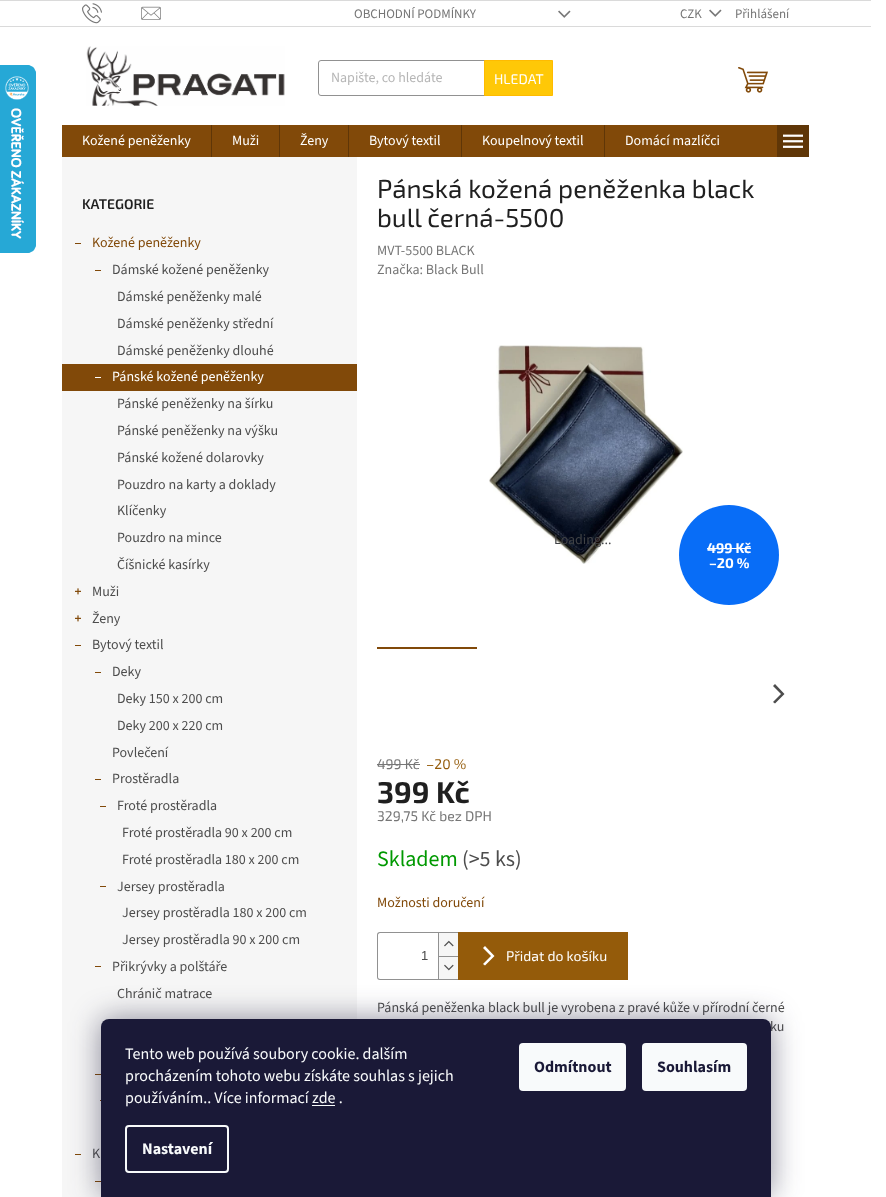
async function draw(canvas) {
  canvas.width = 886;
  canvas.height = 1197;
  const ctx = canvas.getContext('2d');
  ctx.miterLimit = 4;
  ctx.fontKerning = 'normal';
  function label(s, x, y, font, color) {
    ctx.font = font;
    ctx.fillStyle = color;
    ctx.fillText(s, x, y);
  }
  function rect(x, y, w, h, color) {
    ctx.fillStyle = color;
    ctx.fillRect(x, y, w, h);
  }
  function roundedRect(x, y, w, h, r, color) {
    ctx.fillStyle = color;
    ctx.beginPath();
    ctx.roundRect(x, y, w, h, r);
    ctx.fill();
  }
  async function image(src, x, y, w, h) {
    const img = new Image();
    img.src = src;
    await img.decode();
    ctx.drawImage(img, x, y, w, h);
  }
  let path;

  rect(0, 0, 886, 1197, '#fff');
  await image('assets/img1.png', 0, 65, 36, 188);
  rect(0, 0, 871, 1, '#dadada');
  rect(0, 26, 871, 1, '#dadada');
  await image('assets/img2.png', 82, 3, 20, 21);
  await image('assets/img3.png', 141, 6, 20, 14);
  label('OBCHODNÍ PODMÍNKY', 354, 18, '13px "Source Sans 3"', '#767676');
  await image('assets/img4.png', 558, 10, 13, 8);
  label('CZK', 680, 18, '13px "Source Sans 3"', '#767676');
  await image('assets/img4.png', 709, 9, 13, 8);
  label('Přihlášení', 735, 18, '13px "Source Sans 3"', '#767676');
  await image('assets/img5.png', 86, 46, 199, 60);
  ctx.beginPath();
  ctx.roundRect(318.5, 60.5, 234, 35, 2.5);
  ctx.strokeStyle = '#919191';
  ctx.stroke();
  label('Napište, co hledáte', 331, 82, '14px "Source Sans 3"', '#b6b6b6');
  ctx.fillStyle = '#ffc807';
  ctx.beginPath();
  ctx.rect(484.5, 60.5, 68, 35);
  ctx.fill();
  ctx.strokeStyle = '#fb0';
  ctx.stroke();
  label('HLEDAT', 494, 84, '14px "Exo 2"', '#fff');
  await image('assets/img6.png', 738, 67, 30, 26);
  rect(62, 125, 715, 32, '#814909');
  label('Kožené peněženky', 82, 145, '14px "Source Sans 3"', '#fff');
  rect(211, 125, 1, 32, '#5f3607');
  label('Muži', 232, 145, '14px "Source Sans 3"', '#fff');
  rect(279, 125, 1, 32, '#5f3607');
  label('Ženy', 300, 145, '14px "Source Sans 3"', '#fff');
  rect(348, 125, 1, 32, '#5f3607');
  label('Bytový textil', 369, 145, '14px "Source Sans 3"', '#fff');
  rect(461, 125, 1, 32, '#5f3607');
  label('Koupelnový textil', 482, 145, '14px "Source Sans 3"', '#fff');
  rect(604, 125, 1, 32, '#5f3607');
  label('Domácí mazlíčci', 625, 145, '14px "Source Sans 3"', '#fff');
  rect(777, 125, 32, 32, '#5f3607');
  await image('assets/img7.png', 783, 134, 20, 14);
  rect(62, 157, 295, 1040, '#f6f6f6');
  label('KATEGORIE', 82, 209, '600 14px "Exo 2"', '#1f1f1f');
  rect(75, 243, 6, 1, '#814909');
  label('Kožené peněženky', 92, 247, '14px "Source Sans 3"', '#814909');
  rect(95, 270, 6, 1, '#814909');
  label('Dámské kožené peněženky', 112, 274, '14px "Source Sans 3"', '#4d4d4d');
  label('Dámské peněženky malé', 117, 301, '14px "Source Sans 3"', '#4d4d4d');
  label('Dámské peněženky střední', 117, 328, '14px "Source Sans 3"', '#4d4d4d');
  label('Dámské peněženky dlouhé', 117, 355, '14px "Source Sans 3"', '#4d4d4d');
  rect(62, 364, 295, 27, '#814909');
  rect(95, 377, 6, 1, '#fff');
  label('Pánské kožené peněženky', 112, 381, '14px "Source Sans 3"', '#fff');
  label('Pánské peněženky na šírku', 117, 408, '14px "Source Sans 3"', '#4d4d4d');
  label('Pánské peněženky na výšku', 117, 435, '14px "Source Sans 3"', '#4d4d4d');
  label('Pánské kožené dolarovky', 117, 462, '14px "Source Sans 3"', '#4d4d4d');
  label('Pouzdro na karty a doklady', 117, 489, '14px "Source Sans 3"', '#4d4d4d');
  label('Klíčenky', 117, 515, '14px "Source Sans 3"', '#4d4d4d');
  label('Pouzdro na mince', 117, 542, '14px "Source Sans 3"', '#4d4d4d');
  label('Číšnické kasírky', 117, 569, '14px "Source Sans 3"', '#4d4d4d');
  await image('assets/img8.png', 75, 588, 6, 7);
  label('Muži', 92, 596, '14px "Source Sans 3"', '#4d4d4d');
  await image('assets/img8.png', 75, 615, 6, 7);
  label('Ženy', 92, 623, '14px "Source Sans 3"', '#4d4d4d');
  rect(75, 645, 6, 1, '#814909');
  label('Bytový textil', 92, 649, '14px "Source Sans 3"', '#4d4d4d');
  rect(95, 672, 6, 1, '#814909');
  label('Deky', 112, 676, '14px "Source Sans 3"', '#4d4d4d');
  label('Deky 150 x 200 cm', 117, 703, '14px "Source Sans 3"', '#4d4d4d');
  label('Deky 200 x 220 cm', 117, 730, '14px "Source Sans 3"', '#4d4d4d');
  label('Povlečení', 112, 757, '14px "Source Sans 3"', '#4d4d4d');
  rect(95, 779, 6, 1, '#814909');
  label('Prostěradla', 112, 783, '14px "Source Sans 3"', '#4d4d4d');
  rect(100, 806, 6, 1, '#814909');
  label('Froté prostěradla', 117, 810, '14px "Source Sans 3"', '#4d4d4d');
  label('Froté prostěradla 90 x 200 cm', 122, 837, '14px "Source Sans 3"', '#4d4d4d');
  label('Froté prostěradla 180 x 200 cm', 122, 864, '14px "Source Sans 3"', '#4d4d4d');
  rect(100, 886, 6, 1, '#814909');
  label('Jersey prostěradla', 117, 891, '14px "Source Sans 3"', '#4d4d4d');
  label('Jersey prostěradla 180 x 200 cm', 122, 917, '14px "Source Sans 3"', '#4d4d4d');
  label('Jersey prostěradla 90 x 200 cm', 122, 944, '14px "Source Sans 3"', '#4d4d4d');
  rect(95, 966, 6, 1, '#814909');
  label('Přikrývky a polštáře', 112, 971, '14px "Source Sans 3"', '#4d4d4d');
  label('Chránič matrace', 117, 998, '14px "Source Sans 3"', '#4d4d4d');
  rect(95, 1074, 6, 1, '#814909');
  rect(100, 1100, 6, 1, '#814909');
  rect(75, 1154, 6, 1, '#814909');
  label('K', 92, 1158, '14px "Source Sans 3"', '#4d4d4d');
  rect(95, 1181, 6, 1, '#814909');
  label('Pánská kožená peněženka black', 377, 198, '26px "Exo 2"', '#1f1f1f');
  label('bull černá-5500', 377, 227, '26px "Exo 2"', '#1f1f1f');
  label('MVT-5500 BLACK', 377, 255, '14px "Source Sans 3"', '#767676');
  label('Značka: Black Bull', 377, 274, '14px "Source Sans 3"', '#767676');
  await image('assets/img9.png', 489, 345, 194, 219);
  label('Loading...', 554, 544, '14px "Source Sans 3"', '#404245');
  ctx.fillStyle = '#086df7';
  ctx.beginPath();
  ctx.arc(729, 555, 50, 0, 2 * Math.PI);
  ctx.fill();
  label('499 Kč', 707, 553, 'bold 14px "Exo 2"', '#fff');
  rect(707, 548, 44, 1, '#fff');
  label('–20 %', 709, 568, 'bold 14px "Exo 2"', '#fff');
  rect(377, 647, 100, 2, '#814909');
  ctx.fillStyle = '#4d4d4d';
  path = new Path2D('M775 703.5L773 702L781 694L773 686L775 684L784.5 694Z');
  ctx.fill(path);
  label('499 Kč', 377, 769, '14px "Exo 2"', '#767676');
  rect(377, 764, 43, 1, '#767676');
  label('–20 %', 426, 769, '14px "Exo 2"', '#945b0a');
  label('399 Kč', 377, 803, 'bold 30px "Exo 2"', '#1f1f1f');
  label('329,75 Kč bez DPH', 377, 821, '14px "Exo 2"', '#767676');
  label('Skladem', 377, 866, '22px "Source Sans 3"', '#009901');
  label('(>5 ks)', 462, 866, '22px "Source Sans 3"', '#4d4d4d');
  label('Možnosti doručení', 377, 907, '14px "Source Sans 3"', '#814909');
  ctx.fillStyle = '#919191';
  path = new Path2D('M380 932H458V980H380C378 980 377 979 377 977V935C377 933 378 932 380 932ZM380 933H458V979H380C379 979 378 978 378 977V935C378 934 379 933 380 933Z');
  ctx.fill(path, 'evenodd');
  label('1', 421, 960, '13px Liberation Sans', '#4d4d4d');
  rect(439, 933, 19, 23, '#f6f6f6');
  rect(438, 933, 1, 23, '#919191');
  await image('assets/img10.png', 444, 940, 10, 7);
  rect(439, 957, 19, 22, '#f6f6f6');
  rect(438, 956, 20, 1, '#919191');
  rect(438, 956, 1, 23, '#919191');
  await image('assets/img11.png', 444, 964, 10, 7);
  rect(458, 932, 170, 48, '#945b0a');
  ctx.fillStyle = '#fff';
  path = new Path2D('M485 965.5L483 964L491 956L483 948L485 946L494.5 956Z');
  ctx.fill(path);
  label('Přidat do košíku', 506, 961, '14px "Exo 2"', '#fff');
  label('Pánská peněženka black bull je vyrobena z pravé kůže v přírodní černé', 377, 1012, '14px "Source Sans 3"', '#4d4d4d');
  label('ku', 770, 1031, '14px "Source Sans 3"', '#4d4d4d');
  ctx.fillStyle = '#1b193980';
  ctx.filter = 'blur(15px)';
  ctx.beginPath();
  ctx.roundRect(101, 1019, 670, 178, 8);
  ctx.fill();
  ctx.filter = 'none';
  ctx.fillStyle = '#1a1937';
  ctx.beginPath();
  ctx.roundRect(101, 1019, 670, 178, [8, 8, 0, 0]);
  ctx.fill();
  label('Tento web používá soubory cookie. dalším', 125, 1059, '16px "Source Sans 3"', '#f8fafb');
  label('procházením tohoto webu získáte souhlas s jejich', 125, 1081, '16px "Source Sans 3"', '#f8fafb');
  label('používáním.. Více informací zde .', 125, 1103, '16px "Source Sans 3"', '#f8fafb');
  rect(312, 1105, 23, 1, '#f8fafb');
  ctx.beginPath();
  ctx.roundRect(126, 1126, 102, 46, 3);
  ctx.strokeStyle = '#f8fafb';
  ctx.lineWidth = 2;
  ctx.stroke();
  label('Nastavení', 142, 1154, 'bold 16px "Source Sans 3"', '#f8fafb');
  roundedRect(519, 1043, 107, 48, 4, '#f8fafb');
  label('Odmítnout', 534, 1072, 'bold 16px "Source Sans 3"', '#1a1937');
  roundedRect(642, 1043, 105, 48, 4, '#f8fafb');
  label('Souhlasím', 657, 1072, 'bold 16px "Source Sans 3"', '#1a1937');
}

draw(document.querySelector('canvas'));
